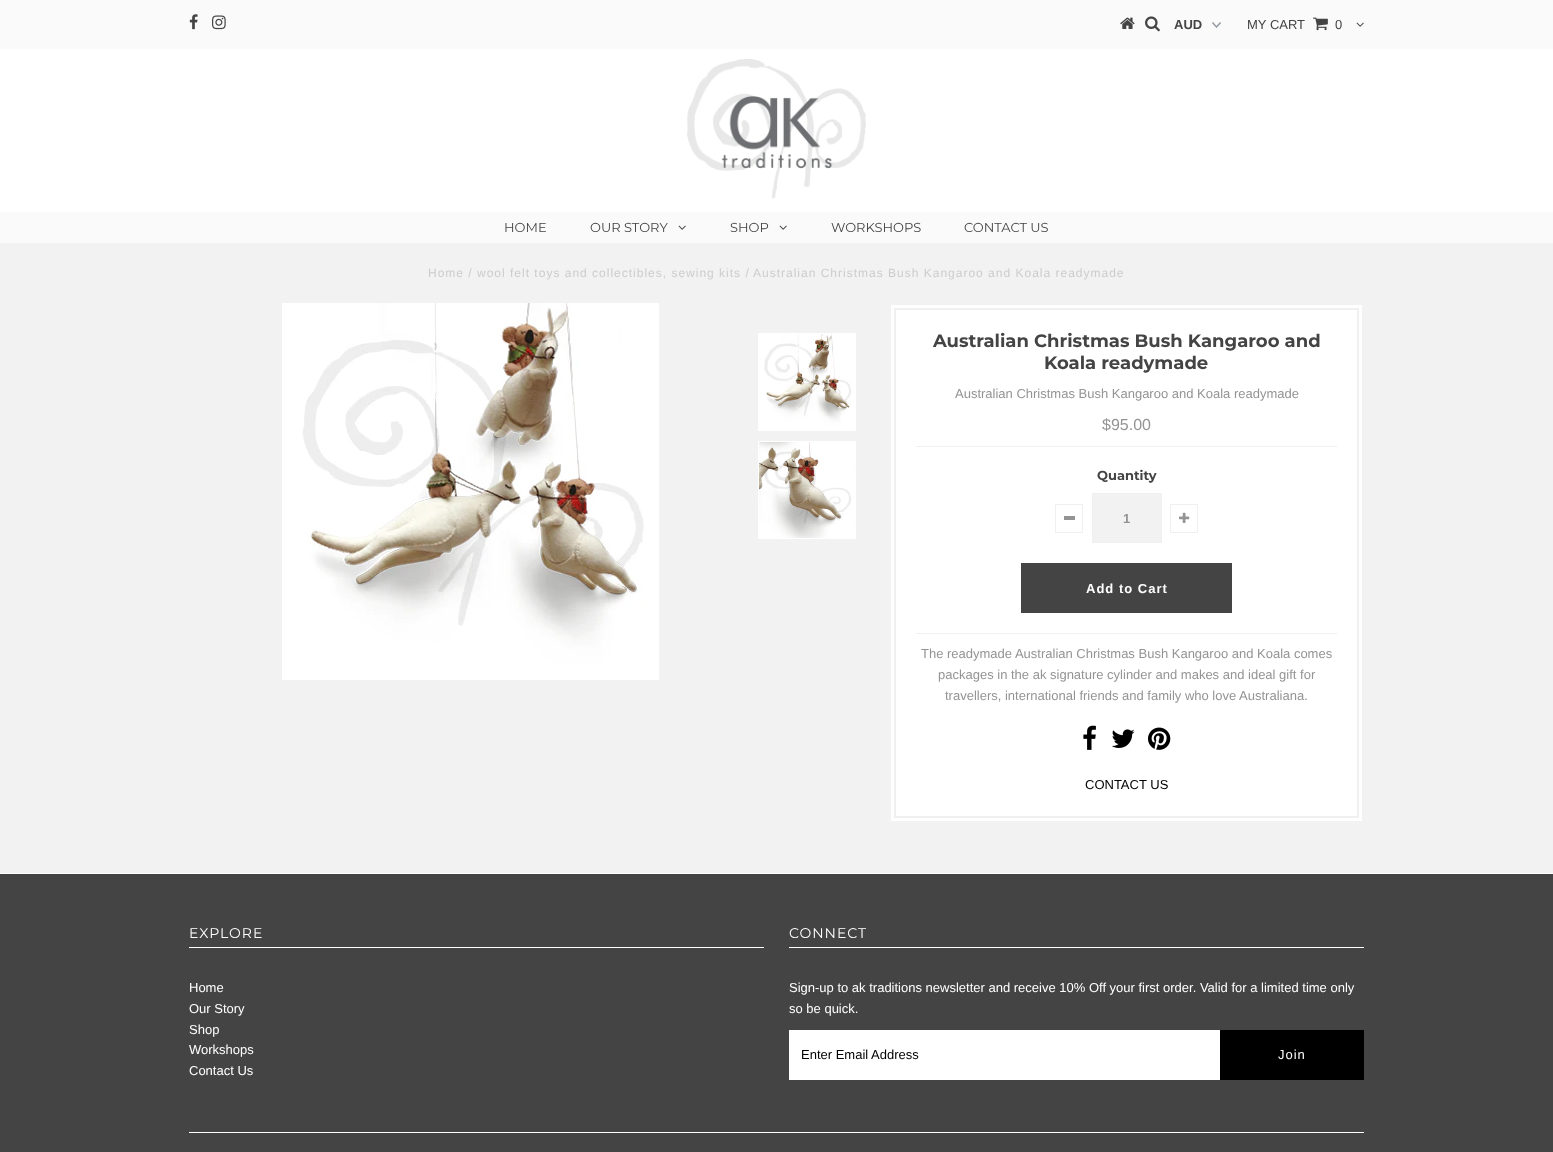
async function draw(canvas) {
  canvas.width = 1553;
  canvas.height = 1152;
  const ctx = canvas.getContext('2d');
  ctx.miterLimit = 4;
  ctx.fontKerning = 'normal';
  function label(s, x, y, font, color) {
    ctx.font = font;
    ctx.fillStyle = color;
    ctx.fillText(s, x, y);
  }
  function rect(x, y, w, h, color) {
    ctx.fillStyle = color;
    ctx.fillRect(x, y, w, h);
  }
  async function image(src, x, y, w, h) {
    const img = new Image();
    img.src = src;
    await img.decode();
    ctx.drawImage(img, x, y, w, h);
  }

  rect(0, 0, 1553, 1152, '#f2f2f2');
  rect(0, 0, 1553, 49, '#fafafa');
  await image('assets/img1.png', 189, 14, 9, 16);
  await image('assets/img2.png', 212, 15, 14, 15);
  await image('assets/img3.png', 1120, 17, 15, 12);
  await image('assets/img4.png', 1145, 16, 15, 16);
  await image('assets/img5.png', 1212, 22, 9, 6);
  label('AUD', 1174, 29, 'bold 13px Liberation Sans', '#444');
  label('MY CART', 1247, 29, '13px Liberation Sans', '#444');
  await image('assets/img6.png', 1313, 17, 15, 14);
  label('0', 1335, 29, '13px Liberation Sans', '#444');
  await image('assets/img7.png', 1356, 22, 8, 5);
  rect(0, 49, 1553, 163, '#fff');
  await image('assets/img8.png', 687, 59, 179, 140);
  rect(0, 212, 1553, 31, '#fafafa');
  label('HOME', 504, 232, '13px Montserrat', '#444');
  label('OUR STORY', 590, 232, '13px Montserrat', '#444');
  await image('assets/img7.png', 678, 225, 8, 5);
  label('SHOP', 730, 232, '13px Montserrat', '#444');
  await image('assets/img7.png', 779, 225, 8, 5);
  label('WORKSHOPS', 831, 232, '13px Montserrat', '#444');
  label('CONTACT US', 964, 232, '13px Montserrat', '#444');
  ctx.letterSpacing = '1px';
  label('Home / wool felt toys and collectibles, sewing kits /', 428, 277, '12px Liberation Sans', '#ccc');
  label('Australian Christmas Bush Kangaroo and Koala readymade', 753, 277, '12px Liberation Sans', '#ccc');
  await image('assets/img9.png', 282, 303, 377, 377);
  ctx.strokeStyle = '#fff';
  ctx.strokeRect(758.5, 333.5, 97, 97);
  await image('assets/img10.png', 759, 334, 96, 96);
  ctx.strokeRect(758.5, 441.5, 97, 97);
  await image('assets/img11.png', 759, 442, 96, 96);
  rect(891, 305, 471, 516, '#fff');
  ctx.strokeStyle = '#f0f0f0';
  ctx.lineWidth = 2;
  ctx.strokeRect(895, 309, 463, 508);
  ctx.letterSpacing = '0px';
  label('Australian Christmas Bush Kangaroo and', 933, 347, 'bold 18px Montserrat', '#444');
  label('Koala readymade', 1044, 369, 'bold 18px Montserrat', '#444');
  label('Australian Christmas Bush Kangaroo and Koala readymade', 955, 398, '13px Liberation Sans', '#949494');
  label('$95.00', 1102, 430, '16px Liberation Sans', '#949494');
  rect(916, 446, 421, 1, '#f0f0f0');
  rect(916, 633, 421, 1, '#f0f0f0');
  label('Quantity', 1097, 480, 'bold 13px Montserrat', '#444');
  ctx.lineWidth = 1;
  ctx.strokeRect(1055.5, 504.5, 27, 28);
  rect(1064, 516, 11, 4, '#949494');
  ctx.fillStyle = '#f2f2f2';
  ctx.beginPath();
  ctx.rect(1092.5, 493.5, 69, 49);
  ctx.fill();
  ctx.stroke();
  label('1', 1123, 523, 'bold 13px Liberation Sans', '#949494');
  ctx.strokeRect(1170.5, 504.5, 27, 28);
  await image('assets/img12.png', 1179, 512, 11, 11);
  rect(1021, 563, 211, 50, '#444');
  ctx.letterSpacing = '1px';
  label('Add to Cart', 1086, 593, 'bold 13px Liberation Sans', '#fff');
  ctx.letterSpacing = '0px';
  label('The readymade Australian Christmas Bush Kangaroo and Koala comes', 921, 658, '13px Liberation Sans', '#949494');
  label('packages in the ak signature cylinder and makes and ideal gift for', 938, 679, '13px Liberation Sans', '#949494');
  label('travellers, international friends and family who love Australiana.', 945, 700, '13px Liberation Sans', '#949494');
  await image('assets/img13.png', 1083, 725, 13, 25);
  await image('assets/img14.png', 1111, 729, 24, 19);
  await image('assets/img15.png', 1148, 727, 23, 23);
  label('CONTACT US', 1085, 789, '13px Liberation Sans', '#000');
  rect(0, 874, 1553, 278, '#444');
  rect(0, 873, 1553, 1, '#fff');
  rect(189, 947, 575, 1, '#fff');
  ctx.letterSpacing = '1px';
  label('EXPLORE', 189, 938, '14px Montserrat', '#fff');
  ctx.letterSpacing = '0px';
  label('Home', 189, 992, '13px Liberation Sans', '#fff');
  label('Our Story', 189, 1013, '13px Liberation Sans', '#fff');
  label('Shop', 189, 1034, '13px Liberation Sans', '#fff');
  label('Workshops', 189, 1054, '13px Liberation Sans', '#fff');
  label('Contact Us', 189, 1075, '13px Liberation Sans', '#fff');
  rect(789, 947, 575, 1, '#fff');
  ctx.letterSpacing = '1px';
  label('CONNECT', 789, 938, '14px Montserrat', '#fff');
  ctx.letterSpacing = '0px';
  label('Sign-up to ak traditions newsletter and receive 10% Off your first order. Valid for a limited time only', 789, 992, '13px Liberation Sans', '#fff');
  label('so be quick.', 789, 1013, '13px Liberation Sans', '#fff');
  rect(789, 1030, 431, 50, '#fff');
  label('Enter Email Address', 801, 1059, '13px Liberation Sans', '#000');
  rect(1220, 1030, 144, 50, '#000');
  ctx.letterSpacing = '1px';
  label('Join', 1278, 1059, '13px Liberation Sans', '#fff');
  rect(189, 1132, 1175, 1, '#fff');
}

draw(document.querySelector('canvas'));
